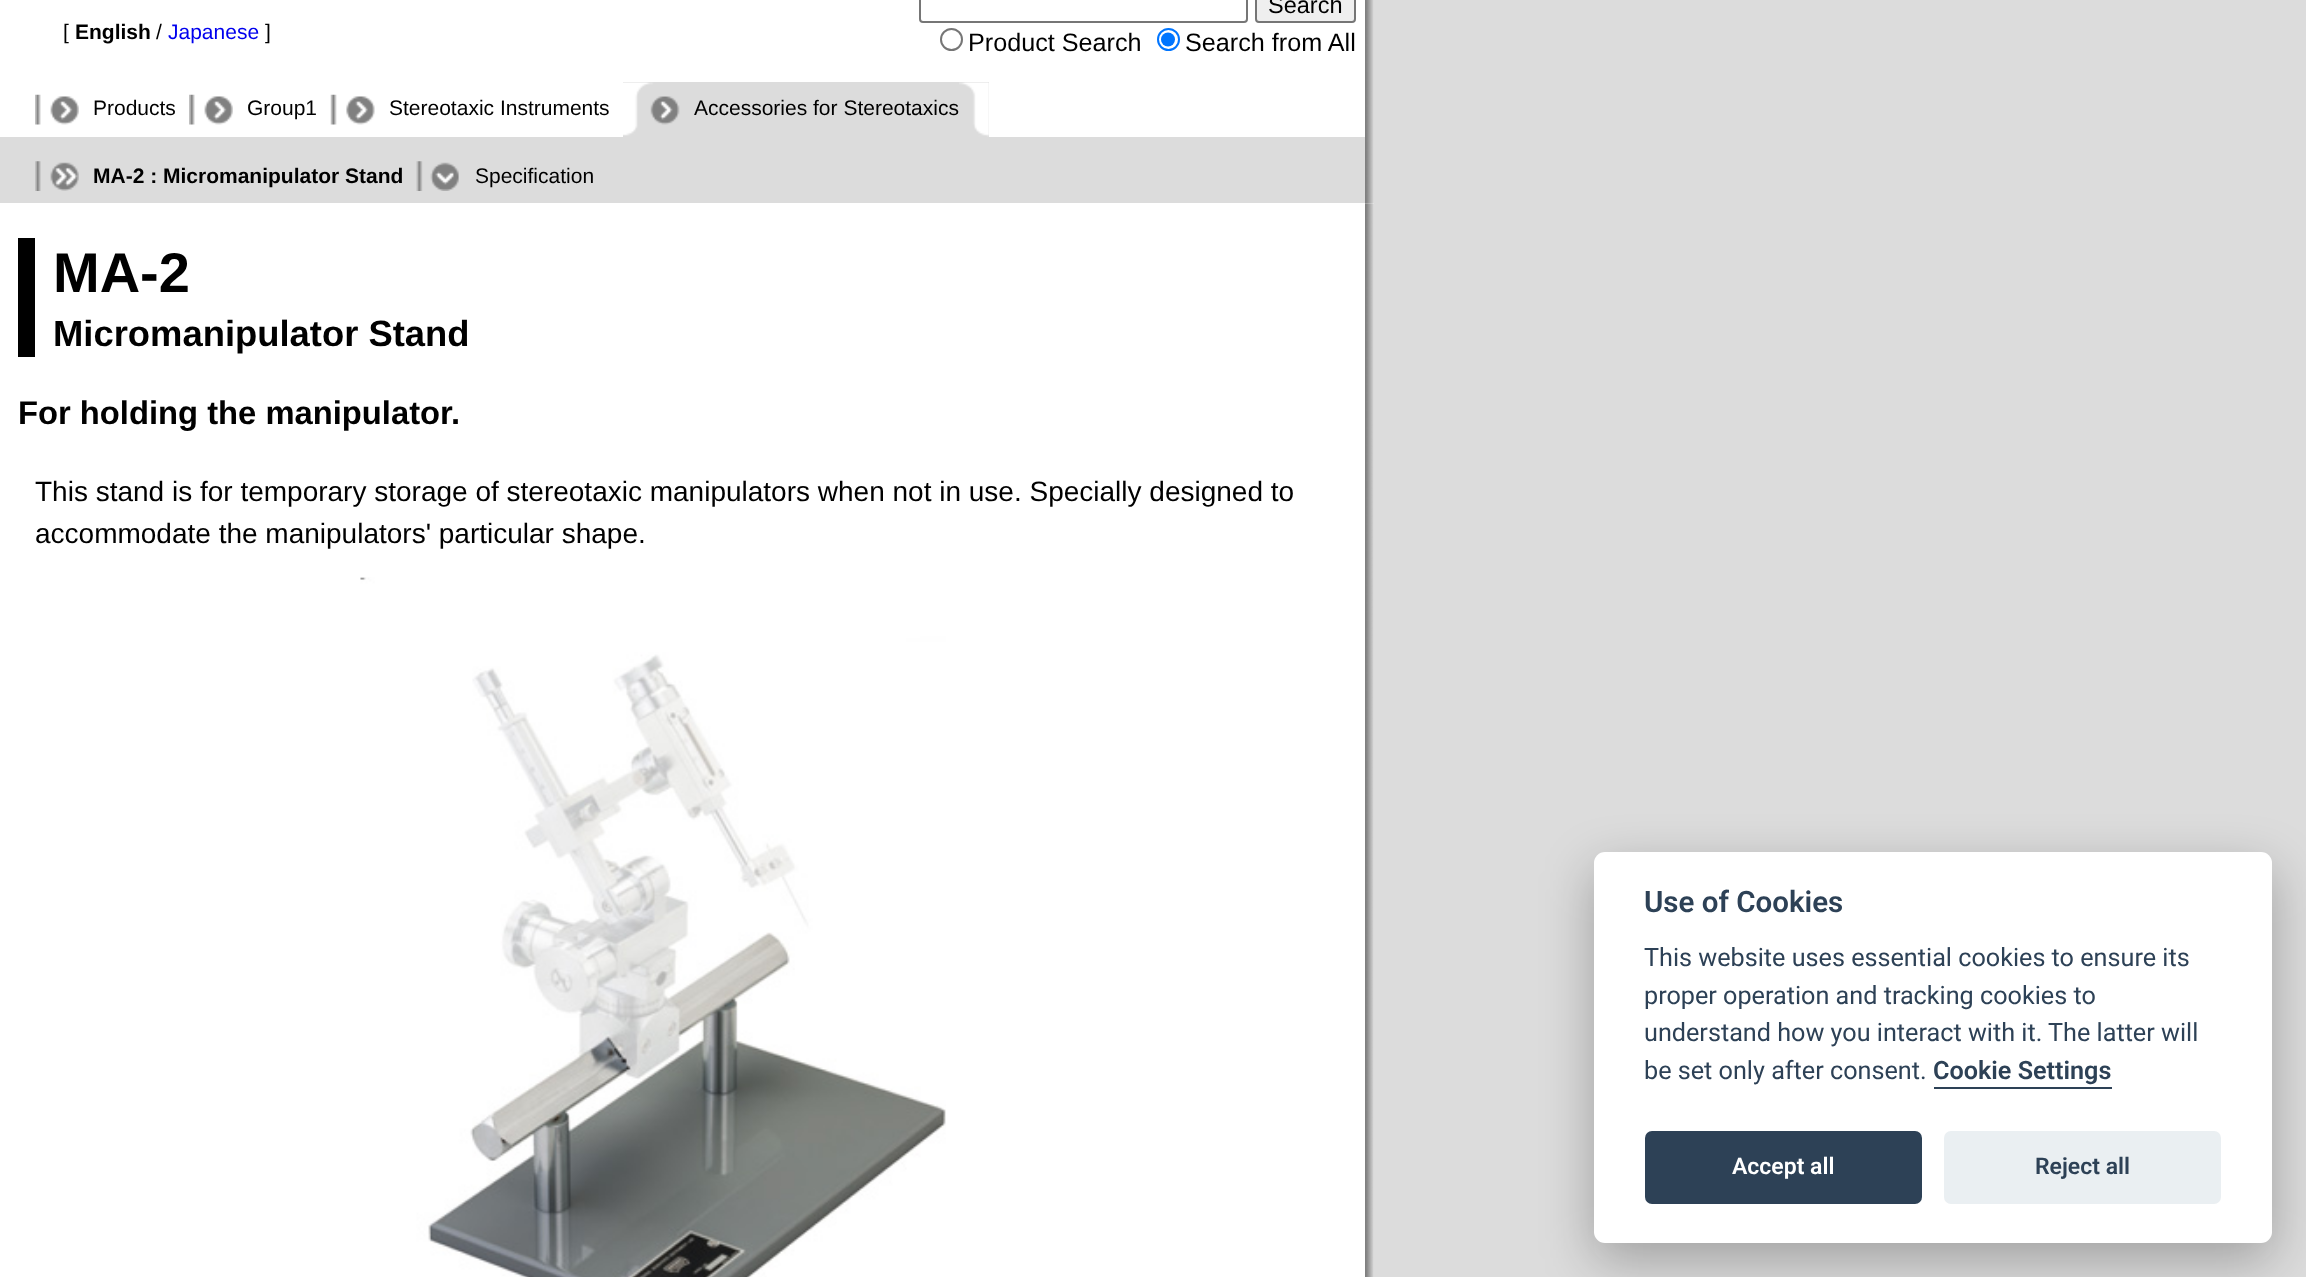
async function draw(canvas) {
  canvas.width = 2306;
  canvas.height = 1277;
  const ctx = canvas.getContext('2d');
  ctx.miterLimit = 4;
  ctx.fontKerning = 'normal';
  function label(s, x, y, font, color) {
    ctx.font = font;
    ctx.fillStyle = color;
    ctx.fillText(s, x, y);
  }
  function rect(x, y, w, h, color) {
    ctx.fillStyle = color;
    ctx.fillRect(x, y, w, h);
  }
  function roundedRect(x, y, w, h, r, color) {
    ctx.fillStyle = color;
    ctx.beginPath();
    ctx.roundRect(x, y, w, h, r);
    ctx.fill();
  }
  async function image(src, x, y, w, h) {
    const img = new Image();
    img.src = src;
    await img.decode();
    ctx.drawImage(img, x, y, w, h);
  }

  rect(0, 0, 2306, 1277, '#dcdcdc');
  rect(0, 0, 1374, 1277, '#fff');
  await image('assets/img1.png', 1365, 0, 9, 203);
  label('[', 63, 39, '21px Liberation Sans', '#000');
  label('English', 75, 39, 'bold 21px Liberation Sans', '#000');
  label('/', 156, 39, '21px Liberation Sans', '#000');
  label('Japanese', 168, 39, '21px Liberation Sans', '#00e');
  label(']', 265, 39, '21px Liberation Sans', '#000');
  ctx.beginPath();
  ctx.roundRect(920, -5, 327, 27, 3);
  ctx.strokeStyle = '#767676';
  ctx.lineWidth = 2;
  ctx.stroke();
  ctx.fillStyle = '#efefef';
  ctx.beginPath();
  ctx.roundRect(1256, -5, 99, 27, 3);
  ctx.fill();
  ctx.stroke();
  label('Search', 1268, 13, '23.5px Liberation Sans', '#000');
  ctx.beginPath();
  ctx.arc(951.5, 39.5, 10.5, 0, 2 * Math.PI);
  ctx.stroke();
  label('Product Search', 968, 51, '25.2px Liberation Sans', '#000');
  ctx.beginPath();
  ctx.arc(1168.5, 39.5, 10.5, 0, 2 * Math.PI);
  ctx.strokeStyle = '#0075ff';
  ctx.stroke();
  ctx.fillStyle = '#0075ff';
  ctx.beginPath();
  ctx.arc(1168, 39.5, 7, 0, 2 * Math.PI);
  ctx.fill();
  label('Search from All', 1185, 51, '25.2px Liberation Sans', '#000');
  await image('assets/img2.png', 35, 94, 44, 31);
  label('Products', 93, 115, '21px Liberation Sans', '#000');
  await image('assets/img3.png', 189, 94, 44, 31);
  label('Group1', 247, 115, '21px Liberation Sans', '#000');
  await image('assets/img4.png', 330, 94, 45, 31);
  label('Stereotaxic Instruments', 389, 115, '21px Liberation Sans', '#000');
  rect(623, 82, 366, 55, '#dcdcdc');
  await image('assets/img5.png', 959, 82, 30, 55);
  await image('assets/img6.png', 623, 82, 57, 54);
  label('Accessories for Stereotaxics', 694, 115, '21px Liberation Sans', '#000');
  rect(0, 137, 1365, 66, '#dcdcdc');
  await image('assets/img7.png', 35, 161, 44, 30);
  label('MA-2 : Micromanipulator Stand', 93, 183, 'bold 21px Liberation Sans', '#000');
  await image('assets/img8.png', 416, 161, 43, 30);
  label('Specification', 475, 183, '21px Liberation Sans', '#000');
  await image('assets/img9.png', 1365, 203, 9, 1074);
  label('MA-2', 53, 292, 'bold 56px Liberation Sans', '#000');
  rect(18, 238, 17, 119, '#000');
  label('Micromanipulator Stand', 53, 346, 'bold 36.4px Liberation Sans', '#000');
  label('For holding the manipulator.', 18, 424, 'bold 32.75px Liberation Sans', '#000');
  label('This stand is for temporary storage of stereotaxic manipulators when not in use. Specially designed to', 35, 501, '28px Liberation Sans', '#000');
  label('accommodate the manipulators\' particular shape.', 35, 543, '28px Liberation Sans', '#000');
  await image('assets/img10.png', 360, 577, 586, 700);
  ctx.fillStyle = '#02020347';
  ctx.filter = 'blur(26px)';
  ctx.beginPath();
  ctx.roundRect(1594, 870, 678, 390, 11);
  ctx.fill();
  ctx.filter = 'none';
  roundedRect(1594, 852, 678, 391, 11, '#fff');
  label('Use of Cookies', 1644, 912, '600 29.5px Roboto', '#2d4156');
  label('This website uses essential cookies to ensure its', 1644, 966, '25.2px Roboto', '#2d4156');
  label('proper operation and tracking cookies to', 1644, 1004, '25.2px Roboto', '#2d4156');
  label('understand how you interact with it. The latter will', 1644, 1041, '25.2px Roboto', '#2d4156');
  label('be set only after consent.', 1644, 1079, '25.2px Roboto', '#2d4156');
  label('Cookie Settings', 1933, 1079, '600 25.2px Roboto', '#2d4156');
  rect(1934, 1087, 178, 2, '#2d4156');
  roundedRect(1645, 1131, 277, 73, 7, '#2d4156');
  label('Accept all', 1732, 1174, '600 23px Roboto', '#fff');
  roundedRect(1944, 1131, 277, 73, 7, '#eaeff2');
  label('Reject all', 2035, 1174, '600 23px Roboto', '#2d4156');
}

draw(document.querySelector('canvas'));
